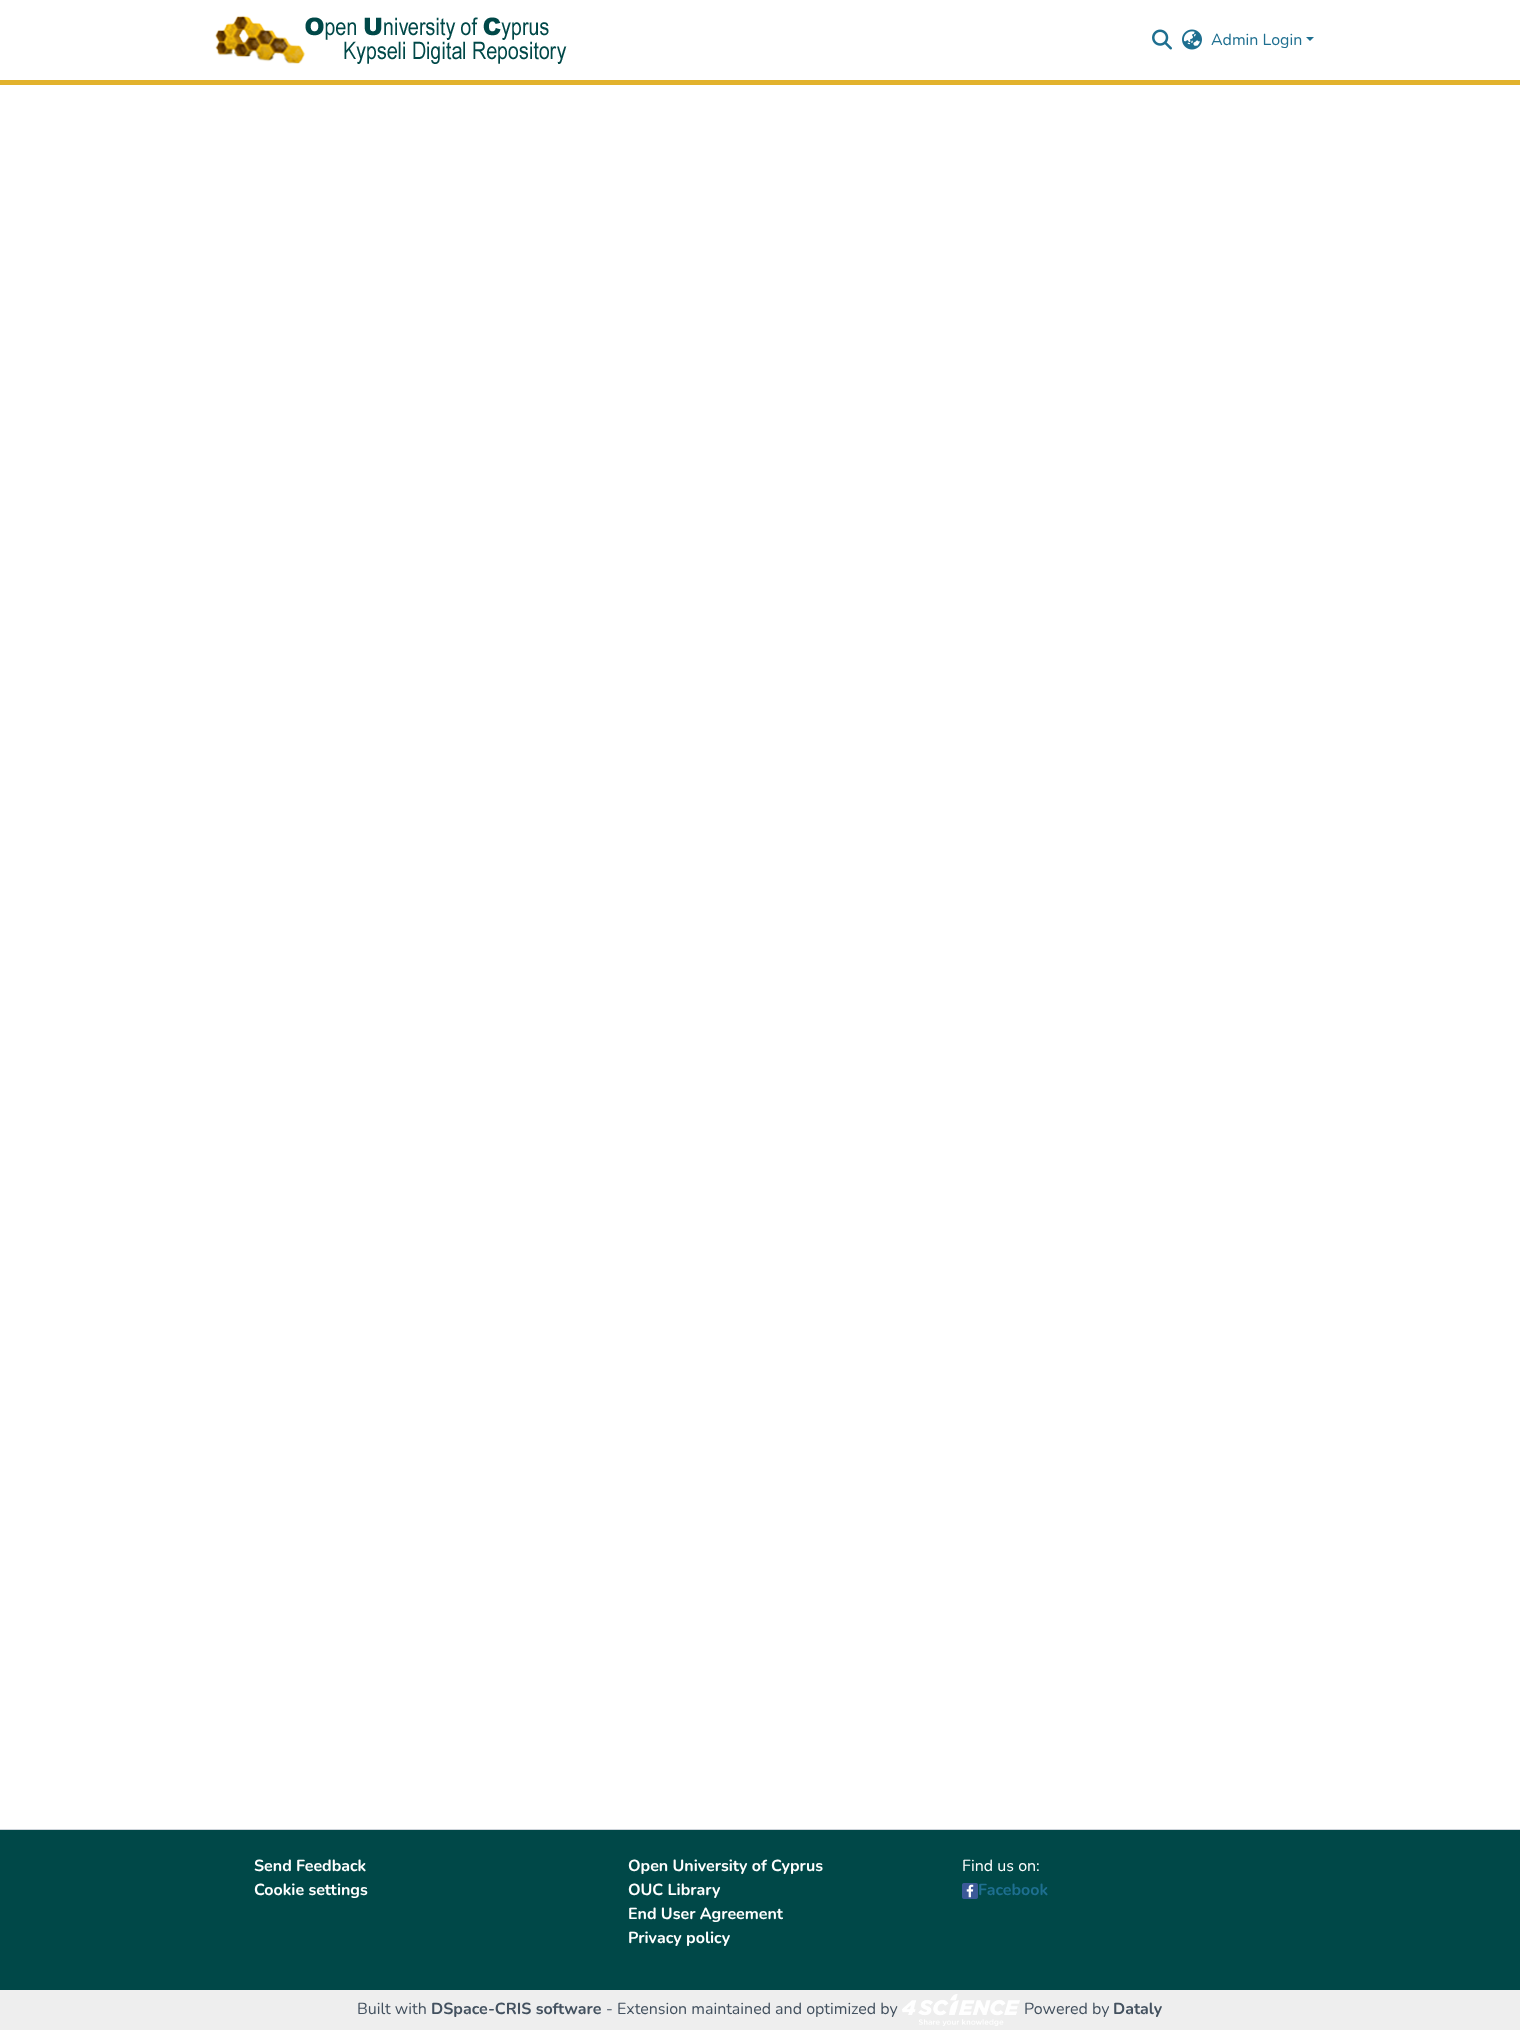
async function draw(canvas) {
  canvas.width = 1520;
  canvas.height = 2030;
  const ctx = canvas.getContext('2d');
  ctx.miterLimit = 4;
  ctx.fontKerning = 'normal';
  function label(s, x, y, font, color) {
    ctx.font = font;
    ctx.fillStyle = color;
    ctx.fillText(s, x, y);
  }
  function rect(x, y, w, h, color) {
    ctx.fillStyle = color;
    ctx.fillRect(x, y, w, h);
  }
  async function image(src, x, y, w, h) {
    const img = new Image();
    img.src = src;
    await img.decode();
    ctx.drawImage(img, x, y, w, h);
  }
  let path;

  rect(0, 0, 1520, 2030, '#fff');
  rect(0, 80, 1520, 5, '#e2b22d');
  await image('assets/img1.png', 215, 15, 352, 49);
  await image('assets/img2.png', 1152, 29, 20, 21);
  await image('assets/img3.png', 1182, 29, 20, 21);
  label('Admin Login', 1211, 45, '16px Nunito', '#1e6f90');
  path = new Path2D('M1306 37H1314L1310 41Z');
  ctx.fill(path);
  rect(0, 1990, 1520, 40, '#eee');
  rect(0, 1829, 1520, 1, '#ced4da');
  rect(0, 1830, 1520, 160, '#004848');
  label('Send Feedback', 254, 1871, 'bold 16px Nunito', '#fff');
  label('Cookie settings', 254, 1895, 'bold 16px Nunito', '#fff');
  label('Open University of Cyprus', 628, 1871, 'bold 16px Nunito', '#fff');
  label('OUC Library', 628, 1895, 'bold 16px Nunito', '#fff');
  label('End User Agreement', 628, 1919, 'bold 16px Nunito', '#fff');
  label('Privacy policy', 628, 1943, 'bold 16px Nunito', '#fff');
  label('Find us on:', 962, 1871, '16px Nunito', '#fff');
  await image('assets/img4.png', 962, 1883, 16, 16);
  label('Facebook', 978, 1895, 'bold 16px Nunito', '#1e6f90');
  label('Built with', 357, 2014, '16px Nunito', '#43515f');
  label('DSpace-CRIS software', 431, 2014, 'bold 16px Nunito', '#43515f');
  label('- Extension maintained and optimized by', 606, 2014, '16px Nunito', '#43515f');
  await image('assets/img5.png', 902, 1994, 118, 32);
  label('Powered by', 1024, 2014, '16px Nunito', '#43515f');
  label('Dataly', 1113, 2014, 'bold 16px Nunito', '#43515f');
}

draw(document.querySelector('canvas'));
